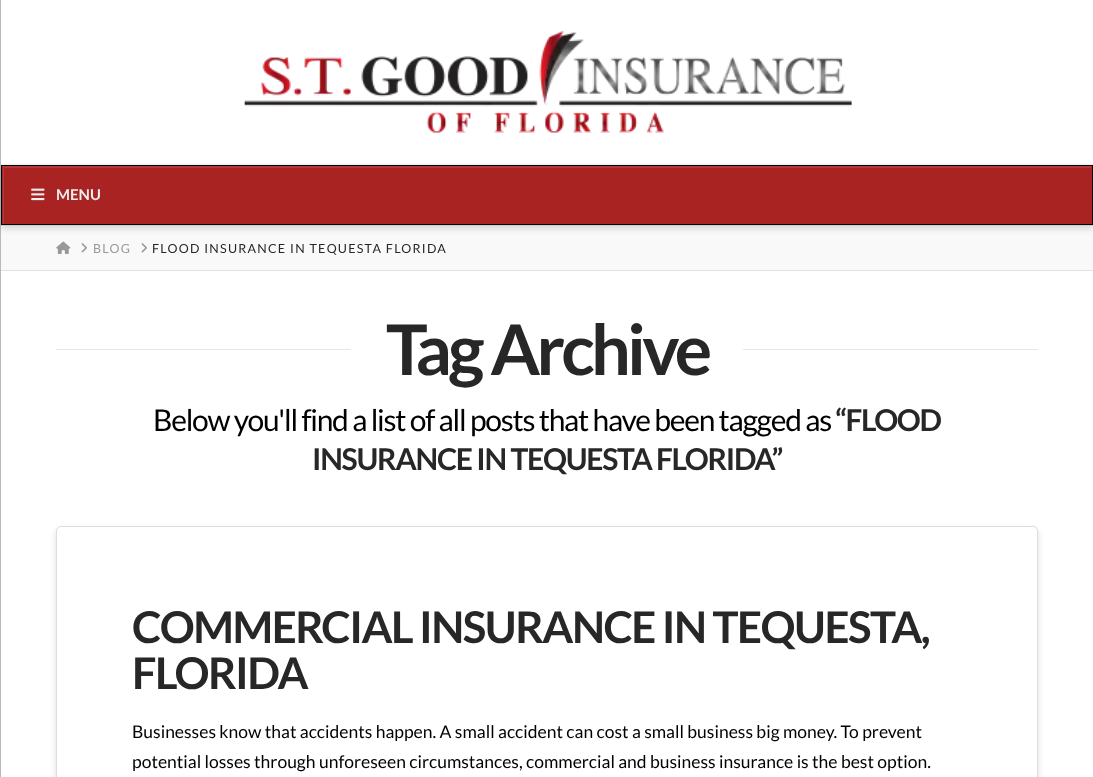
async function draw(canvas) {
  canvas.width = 1093;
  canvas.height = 777;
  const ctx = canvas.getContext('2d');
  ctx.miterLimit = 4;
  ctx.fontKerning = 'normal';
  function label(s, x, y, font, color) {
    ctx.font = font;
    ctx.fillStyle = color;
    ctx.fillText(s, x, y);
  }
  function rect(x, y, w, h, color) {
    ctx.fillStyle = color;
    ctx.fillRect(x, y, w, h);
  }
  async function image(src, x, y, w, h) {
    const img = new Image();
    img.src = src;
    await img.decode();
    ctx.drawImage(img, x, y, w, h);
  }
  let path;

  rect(0, 0, 1093, 777, '#fff');
  rect(0, 0, 1, 777, '#b9b9b9');
  rect(1, 164, 1092, 1, '#f2f2f2');
  await image('assets/img1.png', 244, 31, 608, 102);
  rect(1, 226, 1092, 44, '#f9f9f9');
  ctx.fillStyle = '#00000021';
  ctx.filter = 'blur(3px)';
  ctx.beginPath();
  ctx.rect(1, 168, 1092, 61);
  ctx.fill();
  ctx.filter = 'none';
  rect(1, 225, 1092, 1, '#ccc');
  rect(2, 166, 1090, 58, '#aa2323');
  ctx.save();
  ctx.beginPath();
  ctx.rect(3, 166, 1088, 58);
  ctx.clip();
  ctx.fillStyle = '#b33939';
  path = new Path2D('M-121 42H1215V348H-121ZM4 168H1092V225H4Z');
  ctx.fill(path, 'evenodd');
  ctx.restore();
  ctx.strokeStyle = '#000';
  ctx.strokeRect(1.5, 165.5, 1091, 59);
  await image('assets/img2.png', 31, 188, 14, 13);
  label('MENU', 56, 200, 'bold 15px Lato', '#eee');
  rect(1, 270, 1092, 1, '#e0e0e0');
  await image('assets/img3.png', 56, 241, 15, 14);
  await image('assets/img4.png', 81, 243, 6, 10);
  ctx.letterSpacing = '1.25px';
  label('BLOG', 93, 253, '12.5px Lato', '#999');
  await image('assets/img4.png', 141, 243, 6, 10);
  label('FLOOD INSURANCE IN TEQUESTA FLORIDA', 152, 253, '12.5px Lato', '#272727');
  rect(56, 349, 295, 1, '#e6e6e6');
  ctx.letterSpacing = '-3.75px';
  label('Tag Archive', 386, 375, 'bold 70px Lato', '#272727');
  rect(743, 349, 295, 1, '#e6e6e6');
  ctx.letterSpacing = '-1.25px';
  label('Below you\'ll find a list of all posts that have been tagged as', 153, 431, '30px Lato', '#000');
  label('“FLOOD', 835, 431, 'bold 30px Lato', '#272727');
  label('INSURANCE IN TEQUESTA FLORIDA”', 312, 470, 'bold 30px Lato', '#272727');
  ctx.fillStyle = '#00000021';
  ctx.filter = 'blur(3px)';
  ctx.beginPath();
  ctx.roundRect(56, 529, 982, 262, 5);
  ctx.fill();
  ctx.filter = 'none';
  ctx.fillStyle = '#fff';
  ctx.beginPath();
  ctx.roundRect(56.5, 526.5, 981, 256, 4.5);
  ctx.fill();
  ctx.strokeStyle = '#ddd';
  ctx.stroke();
  ctx.letterSpacing = '-1.5px';
  label('COMMERCIAL INSURANCE IN TEQUESTA,', 132, 643, 'bold 43.75px Lato', '#272727');
  label('FLORIDA', 132, 689, 'bold 43.75px Lato', '#272727');
  ctx.letterSpacing = '0px';
  label('Businesses know that accidents happen. A small accident can cost a small business big money. To prevent', 132, 738, '17.5px Lato', '#000');
  label('potential losses through unforeseen circumstances, commercial and business insurance is the best option.', 132, 768, '17.5px Lato', '#000');
}

draw(document.querySelector('canvas'));
